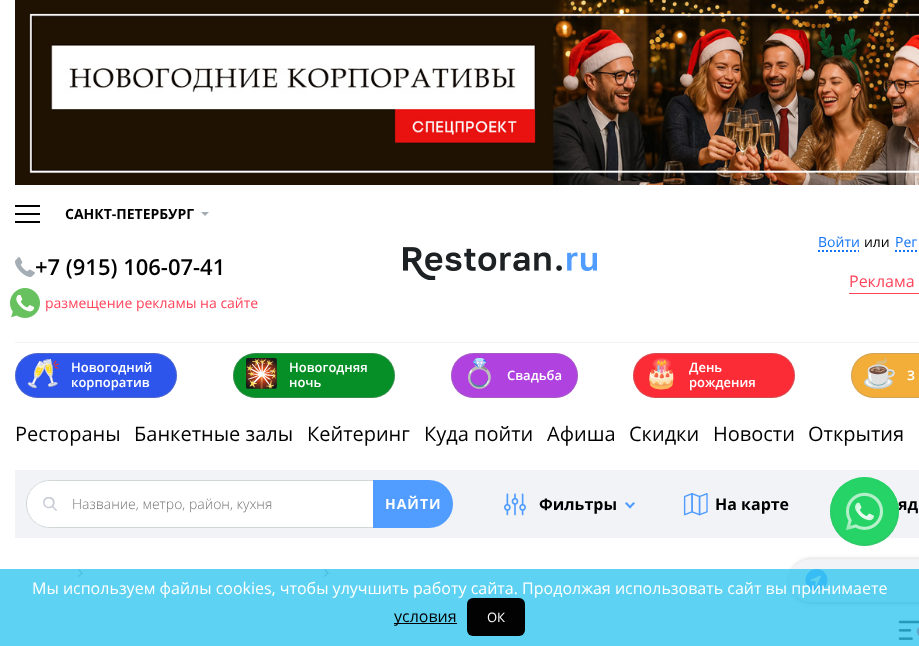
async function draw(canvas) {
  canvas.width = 919;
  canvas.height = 646;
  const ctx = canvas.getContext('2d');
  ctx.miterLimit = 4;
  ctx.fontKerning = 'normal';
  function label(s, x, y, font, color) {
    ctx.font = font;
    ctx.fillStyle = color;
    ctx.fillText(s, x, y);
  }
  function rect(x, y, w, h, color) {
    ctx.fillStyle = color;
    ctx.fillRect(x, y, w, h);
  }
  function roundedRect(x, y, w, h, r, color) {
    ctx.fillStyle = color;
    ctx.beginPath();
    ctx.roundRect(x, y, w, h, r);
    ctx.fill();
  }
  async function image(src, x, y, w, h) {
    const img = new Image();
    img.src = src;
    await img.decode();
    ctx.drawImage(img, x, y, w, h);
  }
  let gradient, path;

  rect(0, 0, 919, 646, '#fff');
  await image('assets/img1.png', 15, 0, 904, 185);
  rect(15, 342, 904, 1, '#f2f3f7');
  rect(15, 205, 25, 2, '#000');
  rect(15, 213, 25, 2, '#000');
  rect(15, 221, 25, 2, '#000');
  label('САНКТ-ПЕТЕРБУРГ', 65, 219, 'bold 14px Open Sans', '#000');
  ctx.fillStyle = '#a4adb4';
  path = new Path2D('M209 212L205 216L201 212');
  ctx.fill(path, 'evenodd');
  await image('assets/img2.png', 15, 257, 20, 20);
  label('+7 (915) 106-07-41', 35, 275, '600 22px Open Sans', '#000');
  await image('assets/img3.png', 10, 288, 30, 30);
  label('размещение рекламы на сайте', 45, 308, '14px Open Sans', '#ff435a');
  await image('assets/img4.png', 403, 247, 194, 33);
  path = new Path2D('M818 251H859');
  ctx.strokeStyle = '#1475f2';
  ctx.lineWidth = 2;
  ctx.setLineDash([2, 2]);
  ctx.stroke(path);
  label('Войти', 818, 247, '14px Open Sans', '#1475f2');
  label('или', 864, 247, '14px Open Sans', '#000');
  path = new Path2D('M895 251H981');
  ctx.stroke(path);
  label('Рег', 895, 247, '14px Open Sans', '#1475f2');
  rect(849, 293, 70, 1, '#ff435a');
  label('Реклама', 849, 287, '16px Open Sans', '#ff435a');
  roundedRect(15, 353, 162, 45, 22.5, '#2d55eb');
  ctx.beginPath();
  ctx.roundRect(15.5, 353.5, 161, 44, 22);
  ctx.strokeStyle = '#8e8c8c59';
  ctx.lineWidth = 1;
  ctx.setLineDash([]);
  ctx.stroke();
  label('🥂', 26, 383, '28px Noto Color Emoji', '#fff');
  label('Новогодний', 71, 372, '600 13px Open Sans', '#fff');
  label('корпоратив', 71, 387, '600 13px Open Sans', '#fff');
  roundedRect(233, 353, 162, 45, 22.5, '#068e27');
  ctx.beginPath();
  ctx.roundRect(233.5, 353.5, 161, 44, 22);
  ctx.stroke();
  label('🎇', 244, 383, '28px Noto Color Emoji', '#fff');
  label('Новогодняя', 289, 372, '600 13px Open Sans', '#fff');
  label('ночь', 289, 387, '600 13px Open Sans', '#fff');
  roundedRect(451, 353, 127, 45, 22.5, '#b043e0');
  ctx.beginPath();
  ctx.roundRect(451.5, 353.5, 126, 44, 22);
  ctx.stroke();
  label('💍', 462, 383, '28px Noto Color Emoji', '#fff');
  label('Свадьба', 507, 380, '600 13px Open Sans', '#fff');
  roundedRect(633, 353, 162, 45, 22.5, '#fb2c36');
  ctx.beginPath();
  ctx.roundRect(633.5, 353.5, 161, 44, 22);
  ctx.stroke();
  label('🎂', 644, 383, '28px Noto Color Emoji', '#fff');
  label('День', 689, 372, '600 13px Open Sans', '#fff');
  label('рождения', 689, 387, '600 13px Open Sans', '#fff');
  roundedRect(851, 353, 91, 45, 22.5, '#f3ad39');
  ctx.beginPath();
  ctx.roundRect(851.5, 353.5, 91, 44, 22);
  ctx.stroke();
  label('☕️', 862, 383, '28px Noto Color Emoji', '#fff');
  label('З', 907, 380, '600 13px Open Sans', '#fff');
  label('Рестораны', 15, 441, '20px Open Sans', '#000');
  label('Банкетные залы', 134, 441, '20px Open Sans', '#000');
  label('Кейтеринг', 307, 441, '20px Open Sans', '#000');
  label('Куда пойти', 424, 441, '20px Open Sans', '#000');
  label('Афиша', 547, 441, '20px Open Sans', '#000');
  label('Скидки', 629, 441, '20px Open Sans', '#000');
  label('Новости', 713, 441, '20px Open Sans', '#000');
  label('Открытия', 808, 441, '20px Open Sans', '#000');
  rect(15, 470, 904, 68, '#f2f3f7');
  ctx.fillStyle = '#fff';
  ctx.beginPath();
  ctx.roundRect(26, 480, 347, 48, [24, 0, 0, 24]);
  ctx.fill();
  await image('assets/img5.png', 43, 497, 14, 14);
  ctx.fillStyle = '#d1d6d9';
  path = new Path2D('M50 480H373V528H50C37 528 26 517 26 504C26 491 37 480 50 480ZM50 481H373V527H50C37 527 27 517 27 504C27 491 37 481 50 481Z');
  ctx.fill(path, 'evenodd');
  label('Название, метро, район, кухня', 72, 509, '300 14px Open Sans', '#757575');
  ctx.fillStyle = '#509cff';
  ctx.beginPath();
  ctx.roundRect(373, 480, 80, 48, [0, 24, 24, 0]);
  ctx.fill();
  ctx.letterSpacing = '1px';
  label('НАЙТИ', 385, 509, 'bold 14px Open Sans', '#fff');
  await image('assets/img6.png', 504, 493, 22, 23);
  ctx.letterSpacing = '0px';
  label('Фильтры', 539, 510, 'bold 16px Open Sans', '#000');
  ctx.fillStyle = '#509cff';
  path = new Path2D('M633.5 502L635 503.5L630 508.5L628.5 507Z');
  ctx.fill(path);
  path = new Path2D('M626.5 502L631.5 507L630 508.5L625 503.5Z');
  ctx.fill(path);
  await image('assets/img7.png', 683, 493, 25, 23);
  label('На карте', 715, 510, 'bold 16px Open Sans', '#000');
  label('яд', 898, 510, 'bold 16px Open Sans', '#000');
  await image('assets/img8.png', 78, 569, 5, 8);
  await image('assets/img8.png', 324, 569, 5, 8);
  ctx.fillStyle = '#b3b0b0';
  ctx.filter = 'blur(2.5px)';
  ctx.beginPath();
  ctx.roundRect(790, 560, 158, 43, 21.5);
  ctx.fill();
  ctx.filter = 'none';
  roundedRect(789, 559, 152, 43, 21.5, '#f2f3f7');
  await image('assets/img9.png', 805, 569, 23, 22);
  await image('assets/img10.png', 898, 620, 21, 20);
  gradient = ctx.createLinearGradient(865, 477, 865, 546);
  gradient.addColorStop(0, '#24d366');
  gradient.addColorStop(1, '#3bb96a');
  ctx.fillStyle = gradient;
  ctx.beginPath();
  ctx.arc(864.5, 511.5, 34.5, 0, 2 * Math.PI);
  ctx.fill();
  ctx.fillStyle = '#25d366';
  ctx.beginPath();
  ctx.arc(864.5, 511.5, 32.5, 0, 2 * Math.PI);
  ctx.fill();
  await image('assets/img11.png', 845, 492, 39, 39);
  gradient = ctx.createRadialGradient(865, 512, 0, 865, 512, 49);
  gradient.addColorStop(0, '#25d36600');
  gradient.addColorStop(1, '#25d366');
  ctx.fillStyle = gradient;
  ctx.beginPath();
  ctx.arc(864.5, 511.5, 34.5, 0, 2 * Math.PI);
  ctx.fill();
  rect(0, 569, 919, 77, '#31c5f0c7');
  label('Мы используем файлы cookies, чтобы улучшить работу сайта. Продолжая использовать сайт вы принимаете', 32, 594, '16px Open Sans', '#fff');
  rect(394, 623, 63, 1, '#000');
  label('условия', 394, 622, '16px Open Sans', '#000');
  roundedRect(467, 598, 58, 38, 6, '#020202');
  label('ОК', 487, 622, '13px Open Sans', '#fff');
}

draw(document.querySelector('canvas'));
